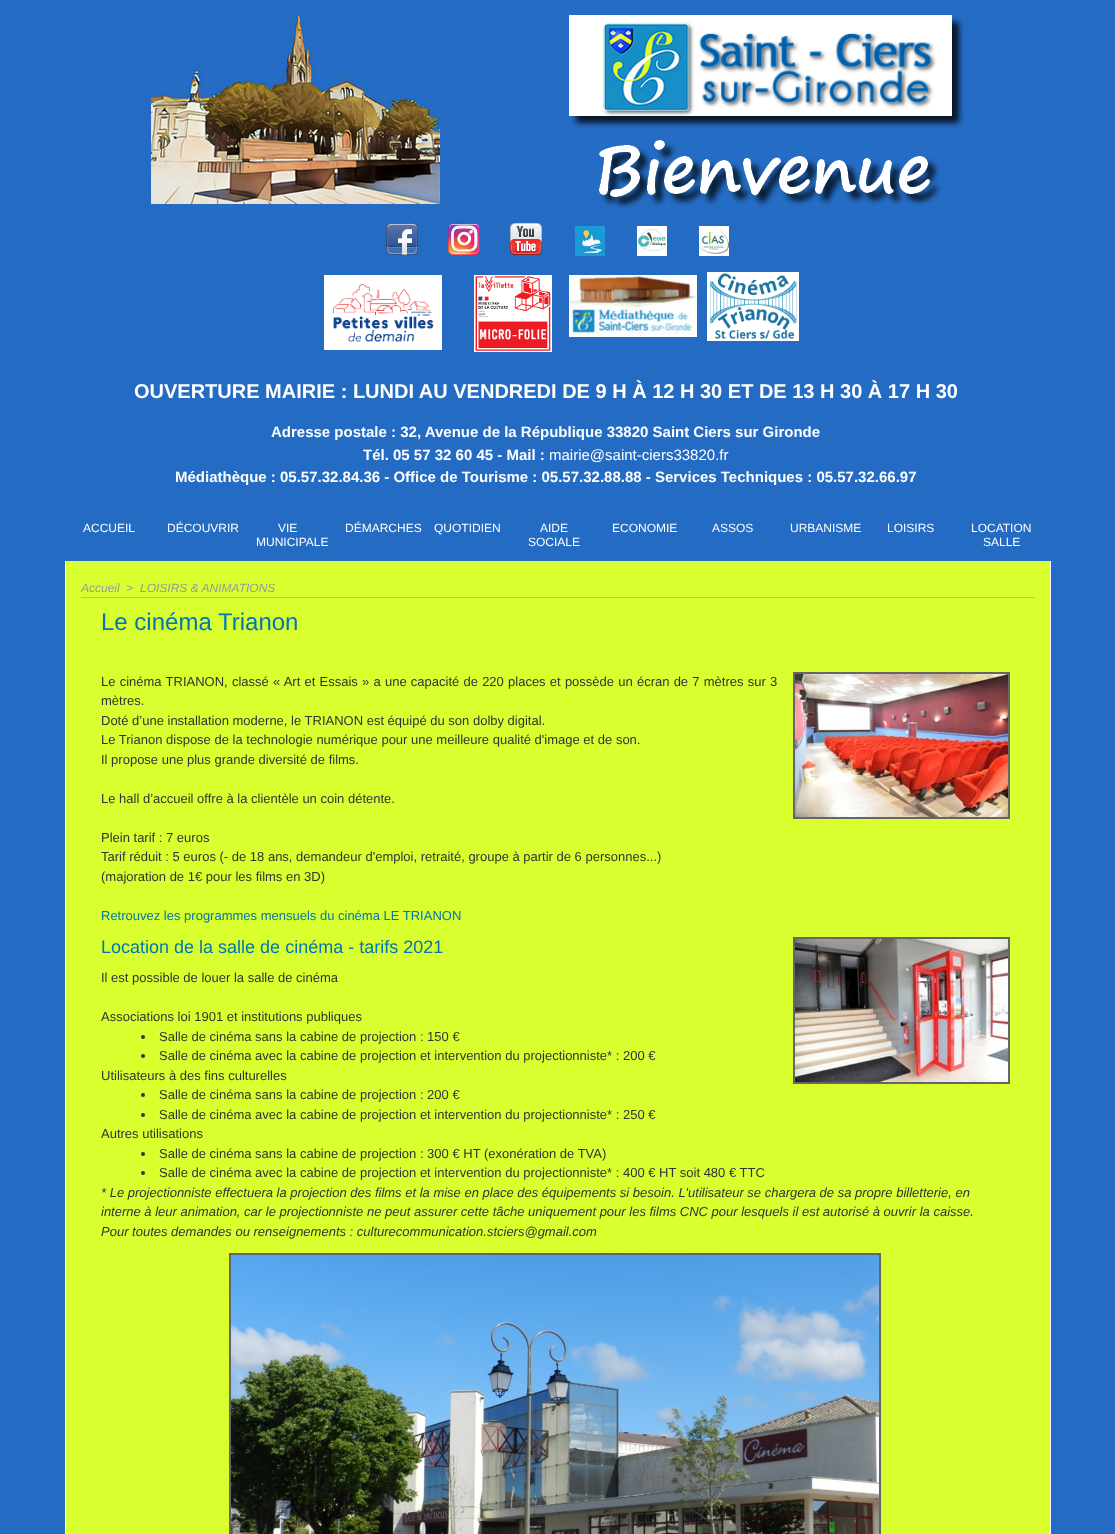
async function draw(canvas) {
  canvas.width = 1115;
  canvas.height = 1534;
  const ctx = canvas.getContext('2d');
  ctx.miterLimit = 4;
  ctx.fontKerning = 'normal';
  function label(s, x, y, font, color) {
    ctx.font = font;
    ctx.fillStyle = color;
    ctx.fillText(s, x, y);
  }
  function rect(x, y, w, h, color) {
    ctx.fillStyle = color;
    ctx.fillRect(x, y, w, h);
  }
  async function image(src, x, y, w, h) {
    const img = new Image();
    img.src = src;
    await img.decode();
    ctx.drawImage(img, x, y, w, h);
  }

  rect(0, 0, 1115, 1534, '#236bc3');
  rect(65, 561, 986, 973, '#fff');
  await image('assets/img1.png', 151, 15, 813, 194);
  await image('assets/img2.png', 386, 223, 32, 32);
  await image('assets/img3.png', 448, 223, 32, 32);
  await image('assets/img4.png', 510, 223, 32, 32);
  await image('assets/img5.png', 575, 226, 30, 30);
  await image('assets/img6.png', 637, 226, 30, 30);
  await image('assets/img7.png', 699, 226, 30, 30);
  await image('assets/img8.png', 324, 275, 118, 75);
  await image('assets/img9.png', 474, 275, 78, 77);
  await image('assets/img10.png', 569, 275, 128, 62);
  await image('assets/img11.png', 707, 272, 92, 69);
  label('OUVERTURE MAIRIE : LUNDI AU VENDREDI DE 9 H À 12 H 30 ET DE 13 H 30 À 17 H 30', 134, 398, 'bold 20px Liberation Sans', '#fff');
  label('Adresse postale : 32, Avenue de la République 33820 Saint Ciers sur Gironde', 271, 437, 'bold 15px Liberation Sans', '#fff');
  label('Tél. 05 57 32 60 45 - Mail :', 363, 460, 'bold 15px Liberation Sans', '#fff');
  label('mairie@saint-ciers33820.fr', 549, 460, '15px Liberation Sans', '#fff');
  label('Médiathèque : 05.57.32.84.36 - Office de Tourisme : 05.57.32.88.88 - Services Techniques : 05.57.32.66.97', 175, 482, 'bold 15px Liberation Sans', '#fff');
  label('ACCUEIL', 83, 532, '12px Liberation Sans', '#fff');
  label('DÉCOUVRIR', 167, 532, '12px Liberation Sans', '#fff');
  label('VIE', 278, 532, '12px Liberation Sans', '#fff');
  label('MUNICIPALE', 256, 546, '12px Liberation Sans', '#fff');
  label('DÉMARCHES', 345, 532, '12px Liberation Sans', '#fff');
  label('QUOTIDIEN', 434, 532, '12px Liberation Sans', '#fff');
  label('AIDE', 540, 532, '12px Liberation Sans', '#fff');
  label('SOCIALE', 528, 546, '12px Liberation Sans', '#fff');
  label('ECONOMIE', 612, 532, '12px Liberation Sans', '#fff');
  label('ASSOS', 712, 532, '12px Liberation Sans', '#fff');
  label('URBANISME', 790, 532, '12px Liberation Sans', '#fff');
  label('LOISIRS', 887, 532, '12px Liberation Sans', '#fff');
  label('LOCATION', 971, 532, '12px Liberation Sans', '#fff');
  label('SALLE', 983, 546, '12px Liberation Sans', '#fff');
  rect(66, 561, 984, 973, '#d9ff2e');
  label('Accueil', 81, 592, 'italic 12px Liberation Sans', '#999');
  label('>', 126, 592, 'italic 12px Liberation Sans', '#999');
  label('LOISIRS & ANIMATIONS', 140, 592, 'italic 12px Liberation Sans', '#999');
  rect(81, 597, 954, 1, '#b9b9b9');
  label('Le cinéma Trianon', 101, 630, '24px Liberation Sans', '#0077b2');
  ctx.wordSpacing = '0.6px';
  label('Le cinéma TRIANON, classé « Art et Essais » a une capacité de 220 places et possède un écran de 7 mètres sur 3', 101, 686, '13px Liberation Sans', '#333');
  ctx.wordSpacing = '0px';
  label('mètres.', 101, 705, '13px Liberation Sans', '#333');
  label('Doté d’une installation moderne, le TRIANON est équipé du son dolby digital.', 101, 725, '13px Liberation Sans', '#333');
  label('Le Trianon dispose de la technologie numérique pour une meilleure qualité d\'image et de son.', 101, 744, '13px Liberation Sans', '#333');
  label('Il propose une plus grande diversité de films.', 101, 764, '13px Liberation Sans', '#333');
  label('Le hall d’accueil offre à la clientèle un coin détente.', 101, 803, '13px Liberation Sans', '#333');
  label('Plein tarif : 7 euros', 101, 842, '13px Liberation Sans', '#333');
  label('Tarif réduit : 5 euros (- de 18 ans, demandeur d\'emploi, retraité, groupe à partir de 6 personnes...)', 101, 861, '13px Liberation Sans', '#333');
  label('(majoration de 1€ pour les films en 3D)', 101, 881, '13px Liberation Sans', '#333');
  label('Retrouvez les programmes mensuels du cinéma LE TRIANON', 101, 920, '13px Liberation Sans', '#0077b2');
  ctx.strokeStyle = '#666';
  ctx.lineWidth = 2;
  ctx.strokeRect(794, 673, 215, 145);
  await image('assets/img12.png', 795, 674, 213, 143);
  label('Location de la salle de cinéma - tarifs 2021', 101, 953, '18px Liberation Sans', '#0077b2');
  ctx.strokeRect(794, 938, 215, 145);
  await image('assets/img13.png', 795, 939, 213, 143);
  label('Il est possible de louer la salle de cinéma', 101, 982, '13px Liberation Sans', '#333');
  label('Associations loi 1901 et institutions publiques', 101, 1021, '13px Liberation Sans', '#333');
  ctx.beginPath();
  ctx.arc(143, 1037, 2, 0, 2 * Math.PI);
  ctx.fill();
  label('Salle de cinéma sans la cabine de projection : 150 €', 159, 1041, '13px Liberation Sans', '#333');
  ctx.beginPath();
  ctx.arc(143, 1056, 2, 0, 2 * Math.PI);
  ctx.fill();
  label('Salle de cinéma avec la cabine de projection et intervention du projectionniste* : 200 €', 159, 1060, '13px Liberation Sans', '#333');
  label('Utilisateurs à des fins culturelles', 101, 1080, '13px Liberation Sans', '#333');
  ctx.beginPath();
  ctx.arc(143, 1095, 2, 0, 2 * Math.PI);
  ctx.fill();
  label('Salle de cinéma sans la cabine de projection : 200 €', 159, 1099, '13px Liberation Sans', '#333');
  ctx.beginPath();
  ctx.arc(143, 1115, 2, 0, 2 * Math.PI);
  ctx.fill();
  label('Salle de cinéma avec la cabine de projection et intervention du projectionniste* : 250 €', 159, 1119, '13px Liberation Sans', '#333');
  label('Autres utilisations', 101, 1138, '13px Liberation Sans', '#333');
  ctx.beginPath();
  ctx.arc(143, 1154, 2, 0, 2 * Math.PI);
  ctx.fill();
  label('Salle de cinéma sans la cabine de projection : 300 € HT (exonération de TVA)', 159, 1158, '13px Liberation Sans', '#333');
  ctx.beginPath();
  ctx.arc(143, 1173, 2, 0, 2 * Math.PI);
  ctx.fill();
  label('Salle de cinéma avec la cabine de projection et intervention du projectionniste* : 400 € HT soit 480 € TTC', 159, 1177, '13px Liberation Sans', '#333');
  label('* Le projectionniste effectuera la projection des films et la mise en place des équipements si besoin. L\'utilisateur se chargera de sa propre billetterie, en', 101, 1197, 'italic 13px Liberation Sans', '#333');
  label('interne à leur animation, car le projectionniste ne peut assurer cette tâche uniquement pour les films CNC pour lesquels il est autorisé à ouvrir la caisse.', 101, 1216, 'italic 13px Liberation Sans', '#333');
  label('Pour toutes demandes ou renseignements : culturecommunication.stciers@gmail.com', 101, 1236, 'italic 13px Liberation Sans', '#333');
  ctx.strokeRect(230, 1254, 650, 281);
  await image('assets/img14.png', 231, 1255, 648, 279);
}

draw(document.querySelector('canvas'));
